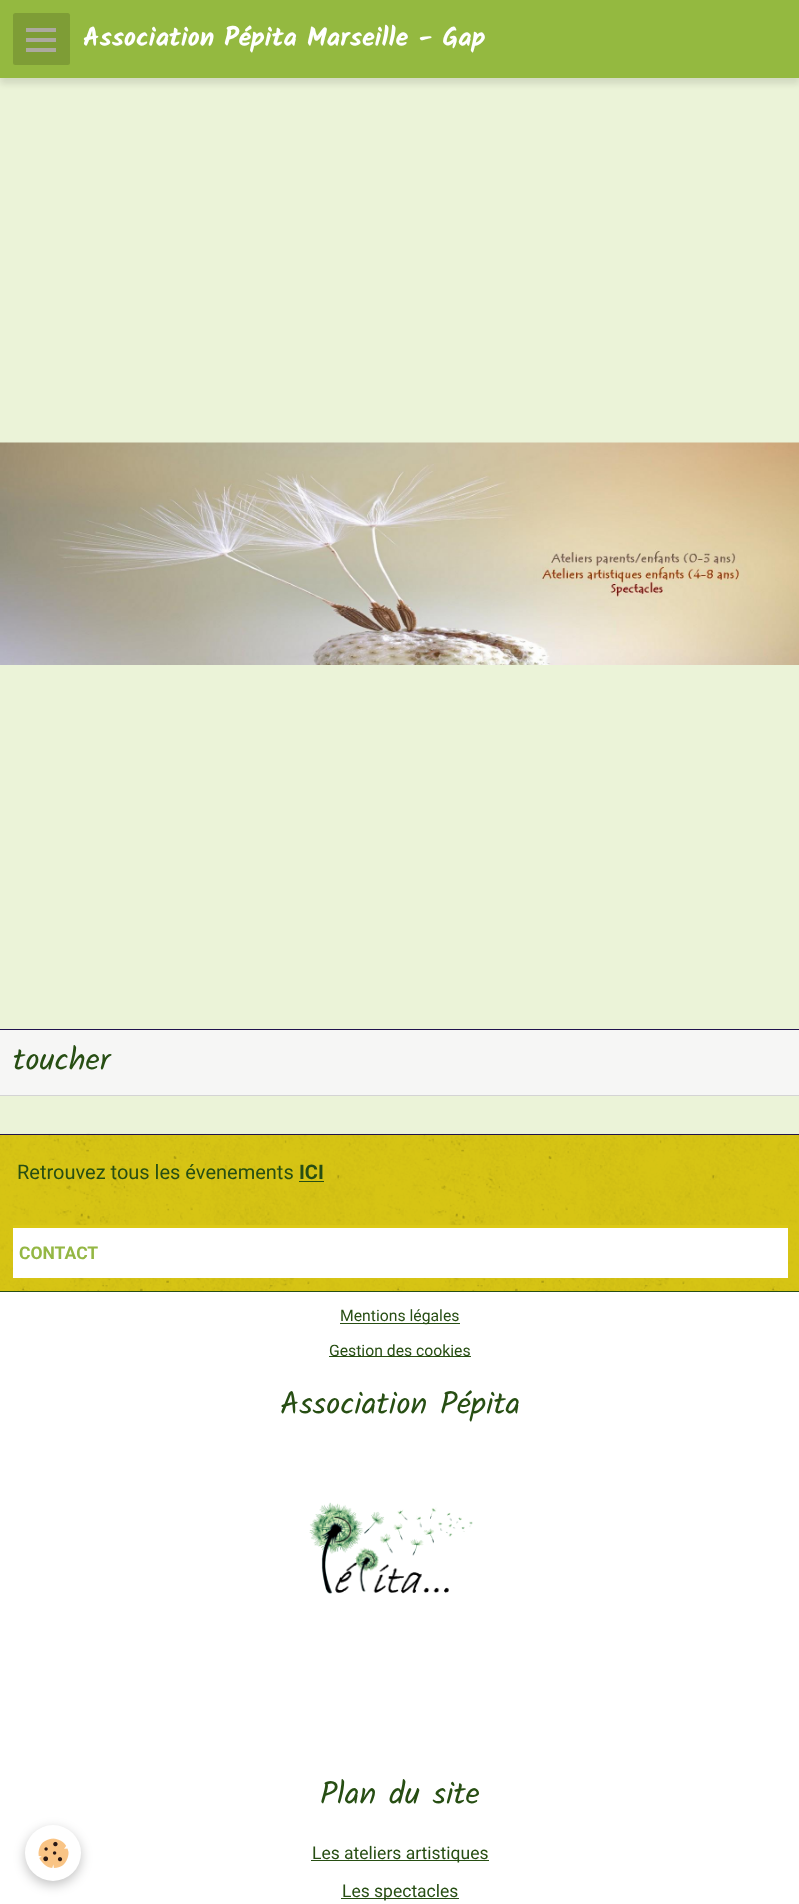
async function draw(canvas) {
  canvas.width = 799;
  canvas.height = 1904;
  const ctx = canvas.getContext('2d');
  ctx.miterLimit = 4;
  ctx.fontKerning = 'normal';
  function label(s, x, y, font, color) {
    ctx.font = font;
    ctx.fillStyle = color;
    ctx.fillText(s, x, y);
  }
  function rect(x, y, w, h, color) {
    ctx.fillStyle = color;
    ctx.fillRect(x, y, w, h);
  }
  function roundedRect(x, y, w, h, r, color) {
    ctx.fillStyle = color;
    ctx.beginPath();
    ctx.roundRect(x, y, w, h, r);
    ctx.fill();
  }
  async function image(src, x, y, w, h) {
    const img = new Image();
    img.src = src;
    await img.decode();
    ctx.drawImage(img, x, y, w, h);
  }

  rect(0, 0, 799, 1904, '#ebf3d8');
  ctx.fillStyle = '#0000001a';
  ctx.filter = 'blur(3px)';
  ctx.beginPath();
  ctx.rect(0, 6, 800, 78);
  ctx.fill();
  ctx.filter = 'none';
  rect(0, 0, 799, 78, '#94b940');
  roundedRect(13, 13, 57, 52, 2.5, '#7e9d36');
  rect(26, 38, 30, 4, '#aca99f');
  rect(26, 28, 30, 4, '#aca99f');
  rect(26, 48, 30, 4, '#aca99f');
  label('Association Pépita Marseille - Gap', 83, 46, 'bold 26.25px Kalam', '#fff');
  await image('assets/img1.png', 0, 442, 799, 223);
  rect(0, 1029, 799, 1, '#20124d');
  rect(0, 1030, 799, 65, '#f6f6f5');
  rect(0, 1095, 799, 1, '#d4d4d4');
  label('toucher', 13, 1070, '31.5px Kalam', '#274e13');
  rect(0, 1135, 799, 156, '#dbc815');
  await image('assets/img2.png', 0, 1133, 799, 158);
  rect(0, 1134, 799, 1, '#20124d');
  label('Retrouvez tous les évenements', 17, 1179, '20px Roboto', '#274e13');
  label('ICI', 299, 1179, 'bold 20px Roboto', '#274e13');
  rect(299, 1181, 25, 1, '#274e13');
  rect(13, 1225, 775, 3, '#dbc815');
  rect(13, 1228, 775, 50, '#fff');
  label('CONTACT', 19, 1259, 'bold 17.5px Roboto', '#94b744');
  rect(0, 1292, 799, 612, '#fff');
  ctx.fillStyle = '#0000003d';
  ctx.filter = 'blur(6px)';
  ctx.beginPath();
  ctx.roundRect(25, 1829, 56, 56, 28);
  ctx.fill();
  ctx.filter = 'none';
  ctx.fillStyle = '#fff';
  ctx.beginPath();
  ctx.arc(53, 1853, 28, 0, 2 * Math.PI);
  ctx.fill();
  await image('assets/img3.png', 38, 1838, 31, 30);
  rect(0, 1291, 799, 1, '#274e13');
  rect(340, 1323, 120, 1, '#274e13');
  label('Mentions légales', 340, 1321, '15.75px Roboto', '#274e13');
  rect(329, 1356, 142, 1, '#274e13');
  label('Gestion des cookies', 329, 1356, '15.75px Roboto', '#274e13');
  label('Association Pépita', 280, 1414, '31.5px Kalam', '#274e13');
  await image('assets/img4.png', 309, 1502, 164, 92);
  label('Plan du site', 320, 1804, '31.5px Kalam', '#274e13');
  rect(311, 1860, 178, 1, '#274e13');
  label('Les ateliers artistiques', 312, 1859, '17.5px Roboto', '#274e13');
  rect(341, 1898, 118, 1, '#274e13');
  label('Les spectacles', 342, 1897, '17.5px Roboto', '#274e13');
}

draw(document.querySelector('canvas'));
